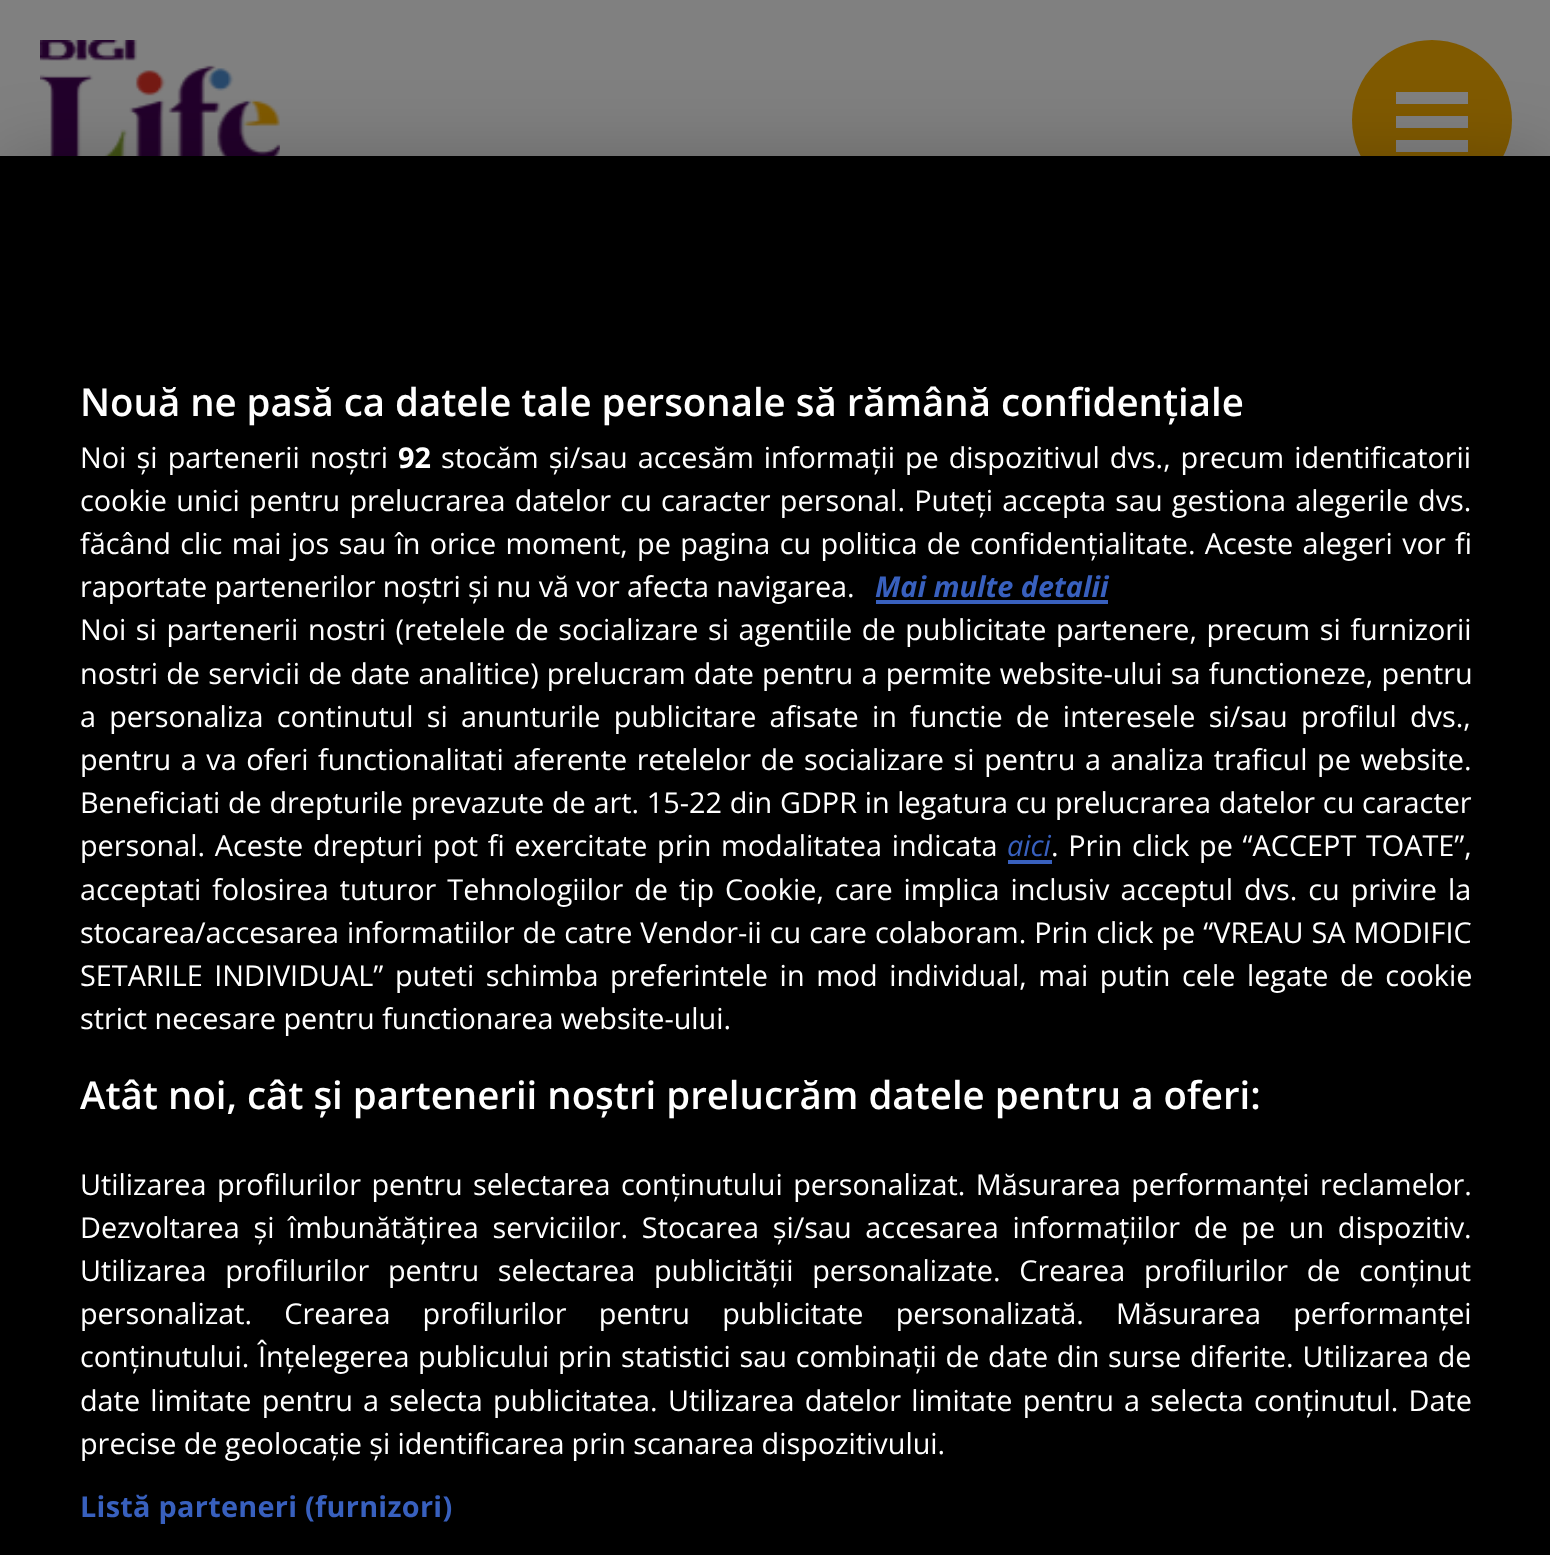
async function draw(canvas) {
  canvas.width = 1550;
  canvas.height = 1555;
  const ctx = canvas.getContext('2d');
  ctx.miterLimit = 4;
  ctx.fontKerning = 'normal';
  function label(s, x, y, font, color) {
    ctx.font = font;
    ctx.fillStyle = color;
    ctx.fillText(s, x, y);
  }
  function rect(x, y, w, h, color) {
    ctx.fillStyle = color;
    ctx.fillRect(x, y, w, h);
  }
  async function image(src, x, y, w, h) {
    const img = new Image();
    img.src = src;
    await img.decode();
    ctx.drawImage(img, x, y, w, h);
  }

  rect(0, 0, 1550, 1555, '#808080');
  await image('assets/img1.png', 40, 40, 240, 116);
  ctx.fillStyle = '#805a00';
  ctx.beginPath();
  ctx.arc(1432, 120, 80, 0, 2 * Math.PI);
  ctx.fill();
  rect(1396, 116, 72, 12, '#808080');
  rect(1396, 92, 72, 12, '#808080');
  rect(1396, 140, 72, 12, '#808080');
  ctx.fillStyle = '#00000033';
  ctx.filter = 'blur(36px)';
  ctx.beginPath();
  ctx.rect(0, 156, 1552, 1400);
  ctx.fill();
  ctx.filter = 'none';
  rect(0, 156, 1550, 1399, '#000');
  label('Nouă ne pasă ca datele tale personale să rămână confidențiale', 80, 416, '600 38.4px Open Sans', '#fff');
  ctx.wordSpacing = '2.75px';
  label('Noi și partenerii noștri', 80, 468, '28.8px Open Sans', '#fff');
  ctx.wordSpacing = '0px';
  label('92', 398, 468, 'bold 28.8px Open Sans', '#fff');
  ctx.wordSpacing = '2.5px';
  label('stocăm și/sau accesăm informații pe dispozitivul dvs., precum identificatorii', 441, 468, '28.8px Open Sans', '#fff');
  ctx.wordSpacing = '1.75px';
  label('cookie unici pentru prelucrarea datelor cu caracter personal. Puteți accepta sau gestiona alegerile dvs.', 80, 511, '28.8px Open Sans', '#fff');
  ctx.wordSpacing = '1.9px';
  label('făcând clic mai jos sau în orice moment, pe pagina cu politica de confidențialitate. Aceste alegeri vor fi', 80, 554, '28.8px Open Sans', '#fff');
  ctx.wordSpacing = '-0.25px';
  label('raportate partenerilor noștri și nu vă vor afecta navigarea.', 80, 597, '28.8px Open Sans', '#fff');
  ctx.wordSpacing = '0px';
  label('Mai multe detalii', 875, 597, 'italic bold 28.8px Open Sans', '#3860be');
  rect(876, 600, 232, 4, '#3860be');
  ctx.wordSpacing = '2.1px';
  label('Noi si partenerii nostri (retelele de socializare si agentiile de publicitate partenere, precum si furnizorii', 80, 640, '28.8px Open Sans', '#fff');
  ctx.wordSpacing = '0.75px';
  label('nostri de servicii de date analitice) prelucram date pentru a permite website-ului sa functioneze, pentru', 80, 684, '28.8px Open Sans', '#fff');
  ctx.wordSpacing = '5.75px';
  label('a personaliza continutul si anunturile publicitare afisate in functie de interesele si/sau profilul dvs.,', 80, 727, '28.8px Open Sans', '#fff');
  ctx.wordSpacing = '2.1px';
  label('pentru a va oferi functionalitati aferente retelelor de socializare si pentru a analiza traficul pe website.', 80, 770, '28.8px Open Sans', '#fff');
  ctx.wordSpacing = '0.25px';
  label('Beneficiati de drepturile prevazute de art. 15-22 din GDPR in legatura cu prelucrarea datelor cu caracter', 80, 813, '28.8px Open Sans', '#fff');
  ctx.wordSpacing = '2.25px';
  label('personal. Aceste drepturi pot fi exercitate prin modalitatea indicata', 80, 856, '28.8px Open Sans', '#fff');
  ctx.wordSpacing = '0px';
  label('aici', 1007, 856, 'italic 28.8px Open Sans', '#3860be');
  rect(1008, 860, 44, 4, '#3860be');
  ctx.wordSpacing = '2.25px';
  label('. Prin click pe “ACCEPT TOATE”,', 1051, 856, '28.8px Open Sans', '#fff');
  ctx.wordSpacing = '3.5px';
  label('acceptati folosirea tuturor Tehnologiilor de tip Cookie, care implica inclusiv acceptul dvs. cu privire la', 80, 900, '28.8px Open Sans', '#fff');
  ctx.wordSpacing = '0.5px';
  label('stocarea/accesarea informatiilor de catre Vendor-ii cu care colaboram. Prin click pe “VREAU SA MODIFIC', 80, 943, '28.8px Open Sans', '#fff');
  ctx.wordSpacing = '4.1px';
  label('SETARILE INDIVIDUAL” puteti schimba preferintele in mod individual, mai putin cele legate de cookie', 80, 986, '28.8px Open Sans', '#fff');
  ctx.wordSpacing = '0px';
  label('strict necesare pentru functionarea website-ului.', 80, 1029, '28.8px Open Sans', '#fff');
  label('Atât noi, cât și partenerii noștri prelucrăm datele pentru a oferi:', 80, 1109, '600 38.4px Open Sans', '#fff');
  ctx.wordSpacing = '3px';
  label('Utilizarea profilurilor pentru selectarea conținutului personalizat. Măsurarea performanței reclamelor.', 80, 1195, '28.8px Open Sans', '#fff');
  ctx.wordSpacing = '6.25px';
  label('Dezvoltarea și îmbunătățirea serviciilor. Stocarea și/sau accesarea informațiilor de pe un dispozitiv.', 80, 1238, '28.8px Open Sans', '#fff');
  ctx.wordSpacing = '11.25px';
  label('Utilizarea profilurilor pentru selectarea publicității personalizate. Crearea profilurilor de conținut', 80, 1281, '28.8px Open Sans', '#fff');
  ctx.wordSpacing = '24.75px';
  label('personalizat. Crearea profilurilor pentru publicitate personalizată. Măsurarea performanței', 80, 1324, '28.8px Open Sans', '#fff');
  ctx.wordSpacing = '1.25px';
  label('conținutului. Înțelegerea publicului prin statistici sau combinații de date din surse diferite. Utilizarea de', 80, 1367, '28.8px Open Sans', '#fff');
  ctx.wordSpacing = '2.75px';
  label('date limitate pentru a selecta publicitatea. Utilizarea datelor limitate pentru a selecta conținutul. Date', 80, 1411, '28.8px Open Sans', '#fff');
  ctx.wordSpacing = '-0.25px';
  label('precise de geolocație și identificarea prin scanarea dispozitivului.', 80, 1454, '28.8px Open Sans', '#fff');
  ctx.letterSpacing = '0.3px';
  ctx.wordSpacing = '0px';
  label('Listă parteneri (furnizori)', 80, 1517, 'bold 28.8px Open Sans', '#3860be');
}

draw(document.querySelector('canvas'));
